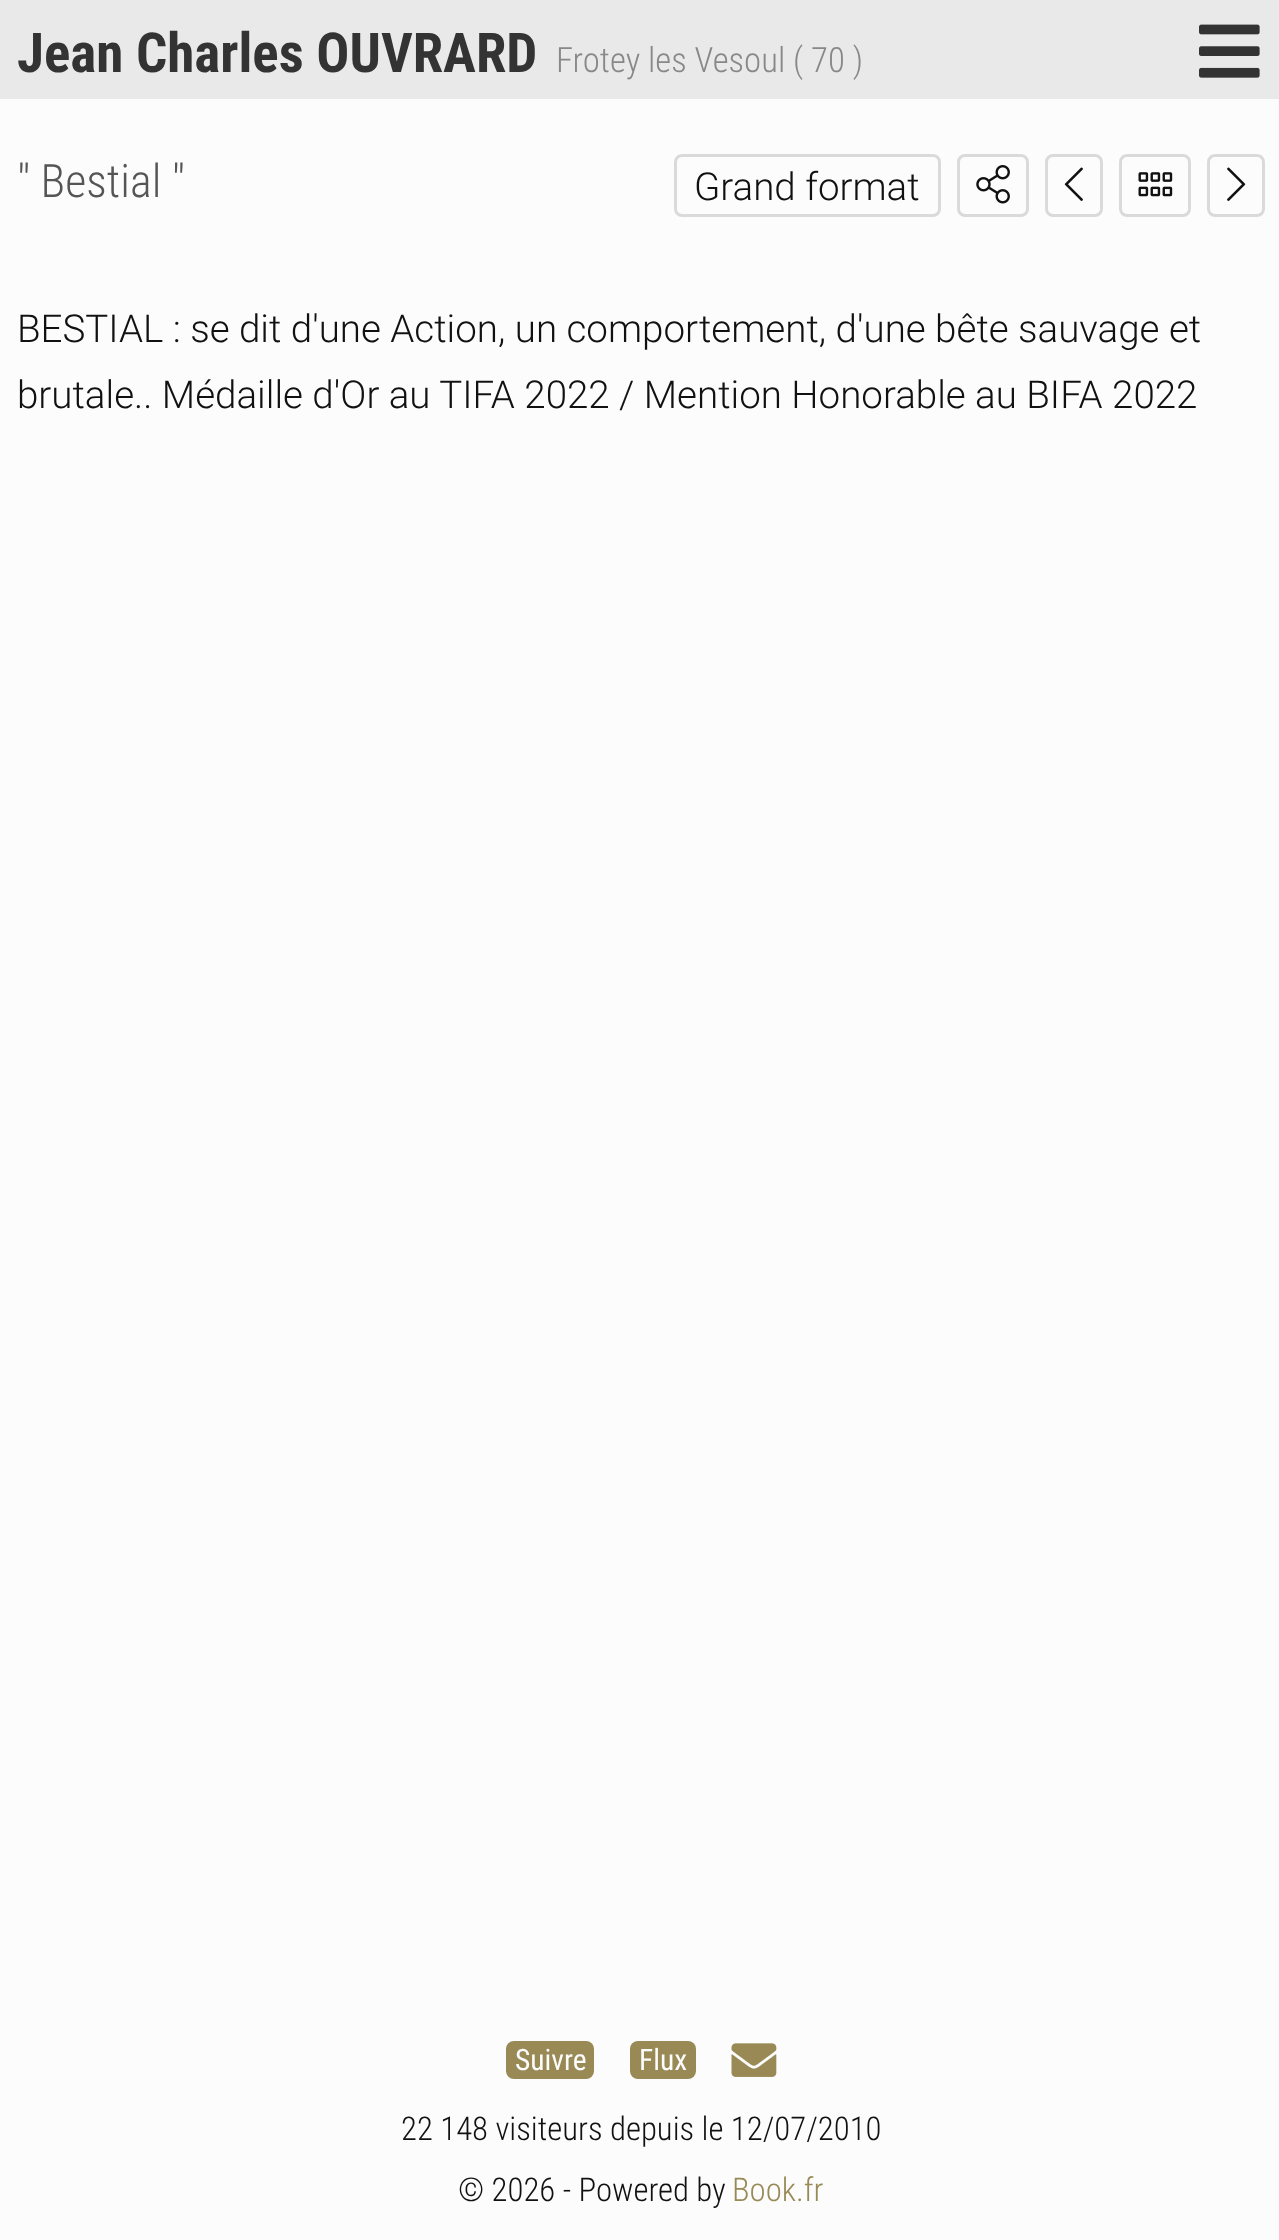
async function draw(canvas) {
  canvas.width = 1279;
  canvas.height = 2240;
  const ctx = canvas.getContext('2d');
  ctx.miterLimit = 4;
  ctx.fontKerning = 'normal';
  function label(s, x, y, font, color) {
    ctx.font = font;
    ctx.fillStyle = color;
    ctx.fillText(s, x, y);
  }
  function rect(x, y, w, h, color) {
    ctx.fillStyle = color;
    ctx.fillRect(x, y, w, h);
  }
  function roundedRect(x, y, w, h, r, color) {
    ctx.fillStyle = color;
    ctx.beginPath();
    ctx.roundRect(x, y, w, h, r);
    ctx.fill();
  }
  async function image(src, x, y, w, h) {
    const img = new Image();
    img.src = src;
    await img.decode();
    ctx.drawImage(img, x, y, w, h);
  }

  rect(0, 0, 1279, 2240, '#fcfcfc');
  rect(0, 0, 1279, 99, '#e9e9e9');
  label('Jean Charles OUVRARD', 17, 72, 'bold 55px Roboto Condensed', '#333');
  label('Frotey les Vesoul ( 70 )', 556, 72, '300 34.75px Roboto Condensed', '#888');
  await image('assets/img1.png', 1199, 24, 61, 54);
  label('" Bestial "', 17, 197, '300 46px Roboto Condensed', '#555');
  ctx.beginPath();
  ctx.roundRect(675.5, 155.5, 264, 60, 6.5);
  ctx.strokeStyle = '#dadada';
  ctx.lineWidth = 3;
  ctx.stroke();
  label('Grand format', 694, 200, '300 38.5px Roboto', '#111');
  ctx.beginPath();
  ctx.roundRect(958.5, 155.5, 69, 60, 6.5);
  ctx.stroke();
  await image('assets/img2.png', 976, 165, 34, 39);
  ctx.beginPath();
  ctx.roundRect(1046.5, 155.5, 55, 60, 6.5);
  ctx.stroke();
  await image('assets/img3.png', 1064, 167, 19, 34);
  ctx.beginPath();
  ctx.roundRect(1120.5, 155.5, 69, 60, 6.5);
  ctx.stroke();
  await image('assets/img4.png', 1138, 172, 35, 25);
  ctx.beginPath();
  ctx.roundRect(1208.5, 155.5, 55, 60, 6.5);
  ctx.stroke();
  await image('assets/img5.png', 1227, 167, 19, 34);
  label('BESTIAL : se dit d\'une Action, un comportement, d\'une bête sauvage et', 17, 342, '300 38.5px Roboto', '#111');
  label('brutale.. Médaille d\'Or au TIFA 2022 / Mention Honorable au BIFA 2022', 17, 408, '300 38.5px Roboto', '#111');
  roundedRect(506, 2041, 88, 38, 8, '#988955');
  label('Suivre', 515, 2070, '29.5px Roboto Condensed', '#fcfcfc');
  roundedRect(630, 2041, 66, 38, 8, '#988955');
  label('Flux', 639, 2070, '29.5px Roboto Condensed', '#fcfcfc');
  await image('assets/img6.png', 731, 2043, 46, 34);
  label('22 148 visiteurs depuis le 12/07/2010', 401, 2140, '300 32.75px Roboto Condensed', '#111');
  label('© 2026 - Powered by', 458, 2201, '300 32.75px Roboto Condensed', '#111');
  label('Book.fr', 732, 2201, '300 32.75px Roboto Condensed', '#988955');
}

draw(document.querySelector('canvas'));
